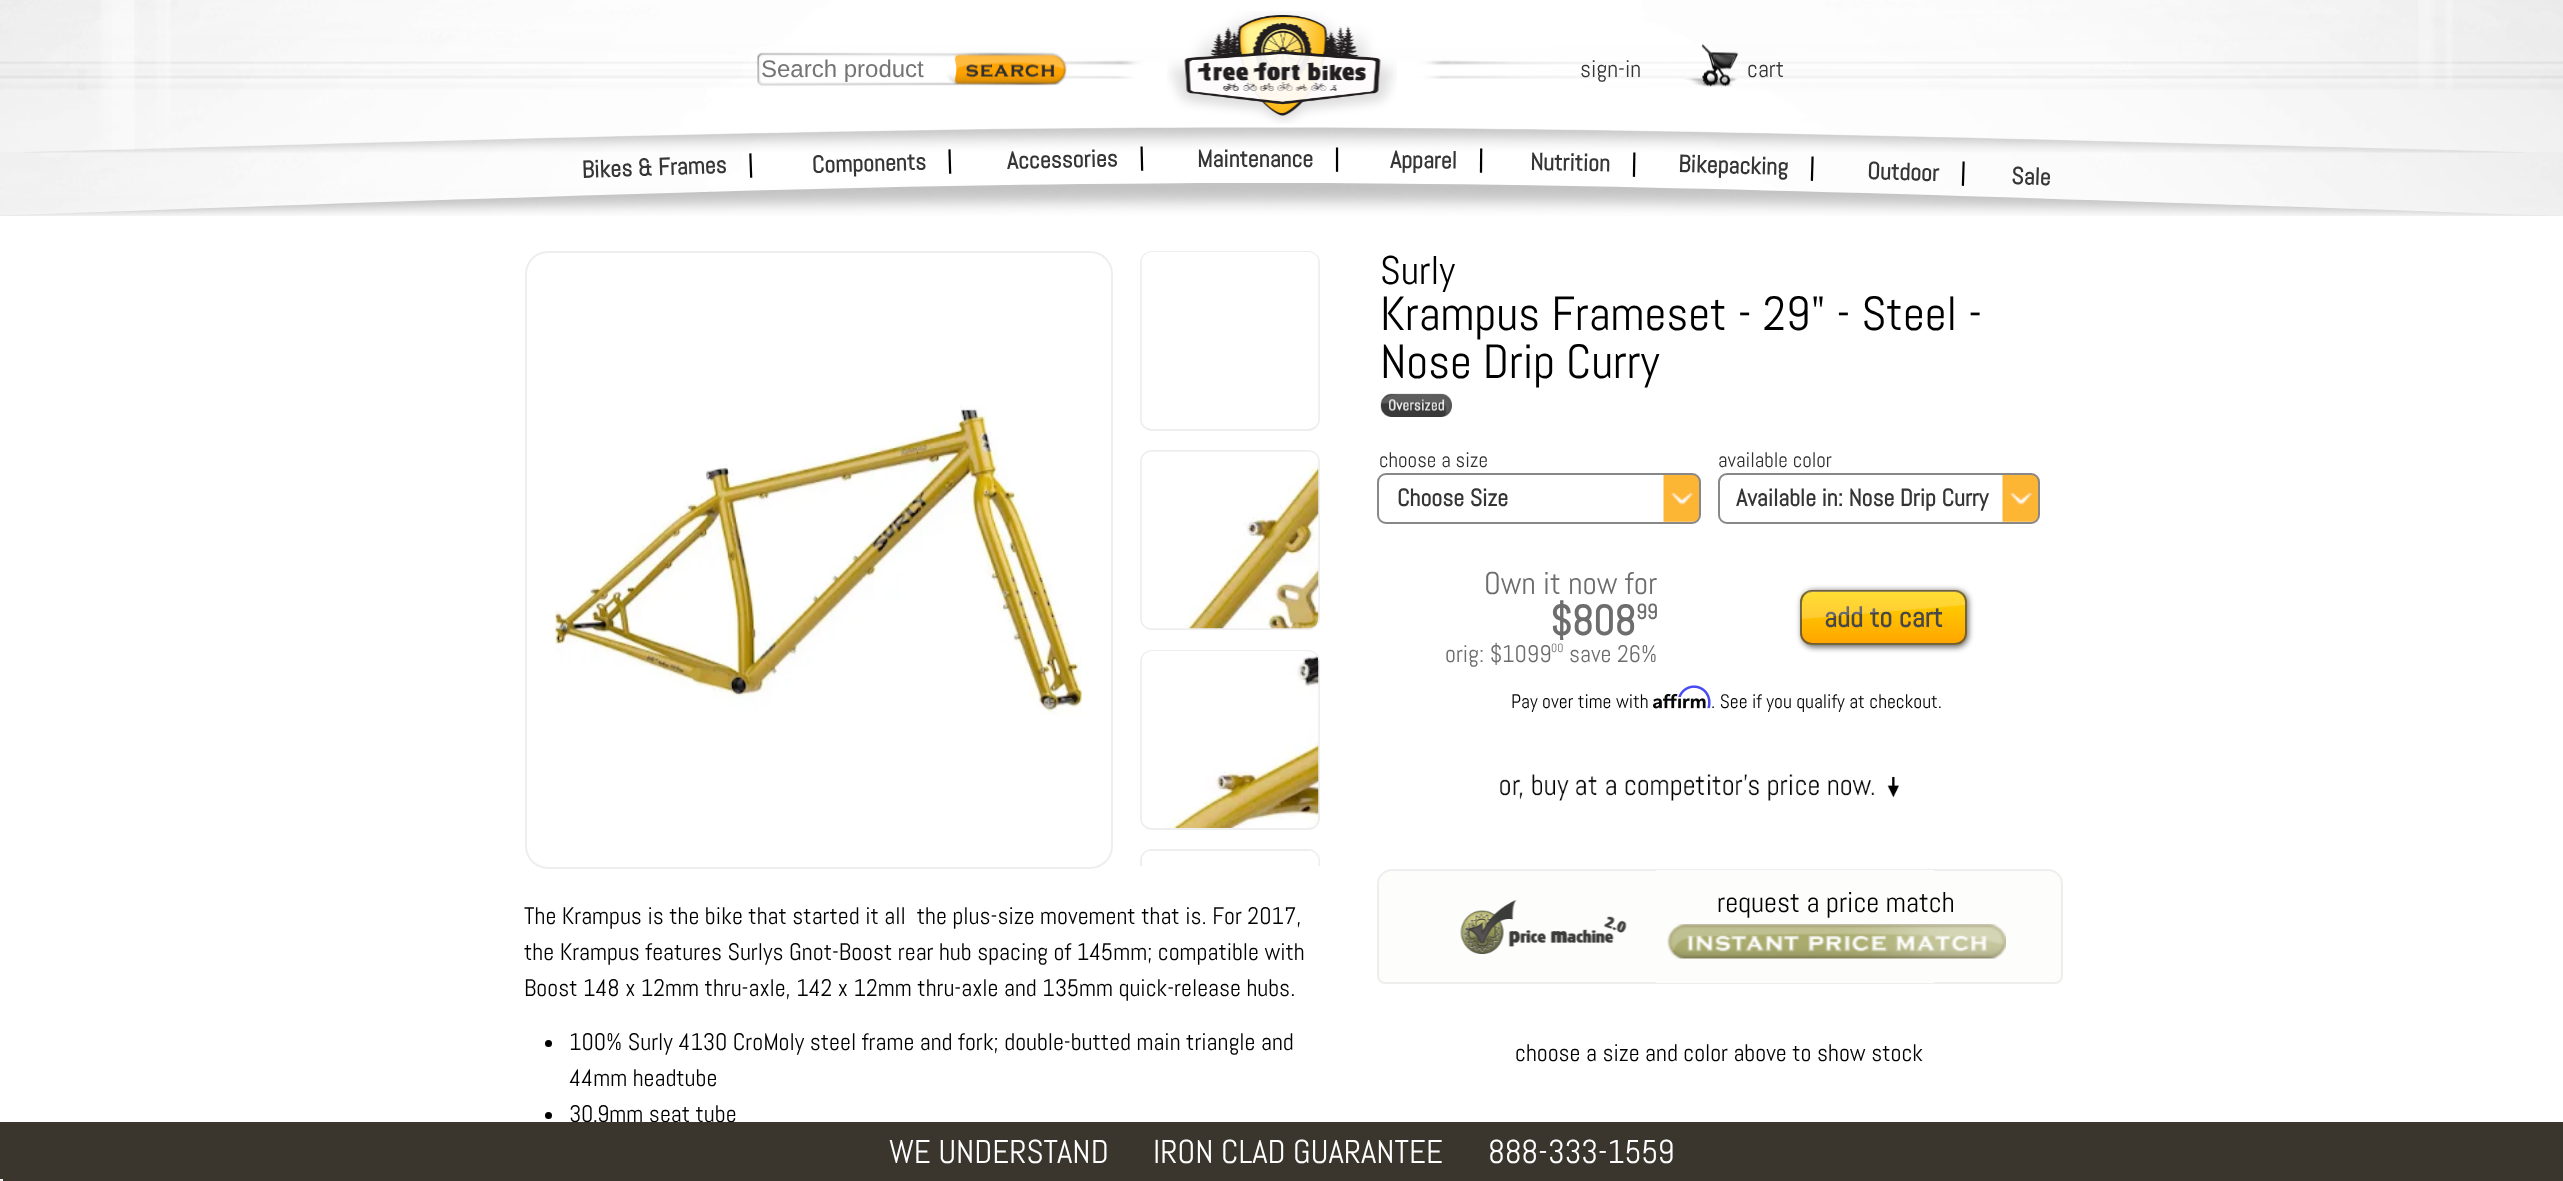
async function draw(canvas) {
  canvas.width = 2563;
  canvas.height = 1181;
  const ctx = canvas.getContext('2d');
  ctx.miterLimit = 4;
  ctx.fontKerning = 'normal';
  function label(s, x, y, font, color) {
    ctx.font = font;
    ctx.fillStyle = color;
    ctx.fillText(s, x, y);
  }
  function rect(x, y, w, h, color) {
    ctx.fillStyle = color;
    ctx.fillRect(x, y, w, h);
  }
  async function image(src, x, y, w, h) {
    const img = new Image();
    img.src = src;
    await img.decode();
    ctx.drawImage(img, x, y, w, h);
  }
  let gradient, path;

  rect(0, 0, 2563, 1181, '#fff');
  await image('assets/img11.png', 0, 30, 2563, 33);
  await image('assets/img13.png', 0, 183, 2563, 33);
  await image('assets/img12.png', 0, 30, 2563, 186);
  ctx.font = 'bold 24px Abel';
  ctx.fillStyle = '#000';
  ctx.save();
  ctx.translate(947, 169);
  ctx.rotate(-1.6 * Math.PI / 180);
  ctx.fillText('|', 0, 0);
  ctx.restore();
  ctx.fillStyle = '#353535';
  ctx.save();
  ctx.translate(1007, 169);
  ctx.rotate(-1.3 * Math.PI / 180);
  ctx.fillText('Accessories', 0, 0);
  ctx.restore();
  ctx.fillStyle = '#000';
  ctx.save();
  ctx.translate(1139, 166);
  ctx.rotate(-1.3 * Math.PI / 180);
  ctx.fillText('|', 0, 0);
  ctx.restore();
  label('Maintenance', 1197, 167, 'bold 24px Abel', '#353535');
  label('|', 1334, 167, 'bold 24px Abel', '#000');
  ctx.fillStyle = '#353535';
  ctx.save();
  ctx.translate(1390, 168);
  ctx.rotate(0.5 * Math.PI / 180);
  ctx.fillText('Apparel', 0, 0);
  ctx.restore();
  ctx.fillStyle = '#000';
  ctx.save();
  ctx.translate(1478, 168);
  ctx.rotate(0.5 * Math.PI / 180);
  ctx.fillText('|', 0, 0);
  ctx.restore();
  await image('assets/img10.png', 24, 126, 2500, 27);
  await image('assets/img1.png', 0, 0, 2563, 152);
  await image('assets/img9.png', 0, 69, 2563, 21);
  await image('assets/img7.png', 0, 60, 2563, 19);
  await image('assets/img2.png', 100, 0, 71, 150);
  await image('assets/img3.png', 1167, 11, 230, 113);
  await image('assets/img4.png', 2418, 0, 35, 89);
  await image('assets/img5.png', 757, 52, 310, 34);
  label('Search product', 761, 77, '24px Liberation Sans', '#757575');
  await image('assets/img6.png', 1184, 15, 197, 101);
  label('sign-in', 1580, 77, '24px Abel', '#353535');
  await image('assets/img8.png', 1684, 44, 54, 43);
  label('cart', 1747, 77, '24px Abel', '#353535');
  ctx.font = 'bold 24px Abel';
  ctx.save();
  ctx.translate(582, 178);
  ctx.rotate(-2 * Math.PI / 180);
  ctx.fillText('Bikes & Frames', 0, 0);
  ctx.restore();
  ctx.fillStyle = '#000';
  ctx.save();
  ctx.translate(748, 173);
  ctx.rotate(-2 * Math.PI / 180);
  ctx.fillText('|', 0, 0);
  ctx.restore();
  ctx.fillStyle = '#353535';
  ctx.save();
  ctx.translate(812, 173);
  ctx.rotate(-1.6 * Math.PI / 180);
  ctx.fillText('Components', 0, 0);
  ctx.restore();
  ctx.save();
  ctx.translate(1530, 170);
  ctx.rotate(1 * Math.PI / 180);
  ctx.fillText('Nutrition', 0, 0);
  ctx.restore();
  ctx.fillStyle = '#000';
  ctx.save();
  ctx.translate(1631, 172);
  ctx.rotate(1 * Math.PI / 180);
  ctx.fillText('|', 0, 0);
  ctx.restore();
  ctx.fillStyle = '#353535';
  ctx.save();
  ctx.translate(1678, 172);
  ctx.rotate(1.6 * Math.PI / 180);
  ctx.fillText('Bikepacking', 0, 0);
  ctx.restore();
  ctx.fillStyle = '#000';
  ctx.save();
  ctx.translate(1809, 176);
  ctx.rotate(1.6 * Math.PI / 180);
  ctx.fillText('|', 0, 0);
  ctx.restore();
  ctx.fillStyle = '#353535';
  ctx.save();
  ctx.translate(1867, 179);
  ctx.rotate(1.8 * Math.PI / 180);
  ctx.fillText('Outdoor', 0, 0);
  ctx.restore();
  ctx.fillStyle = '#000';
  ctx.save();
  ctx.translate(1960, 181);
  ctx.rotate(1.8 * Math.PI / 180);
  ctx.fillText('|', 0, 0);
  ctx.restore();
  ctx.fillStyle = '#353535';
  ctx.save();
  ctx.translate(2011, 184);
  ctx.rotate(2 * Math.PI / 180);
  ctx.fillText('Sale', 0, 0);
  ctx.restore();
  ctx.beginPath();
  ctx.roundRect(526, 252, 586, 616, 22);
  ctx.strokeStyle = '#eee';
  ctx.lineWidth = 2;
  ctx.stroke();
  await image('assets/img14.png', 555, 405, 527, 310);
  ctx.beginPath();
  ctx.roundRect(1141, 252, 178, 178, 11);
  ctx.stroke();
  await image('assets/img15.png', 1141, 252, 178, 175);
  ctx.beginPath();
  ctx.roundRect(1141, 451, 178, 178, 11);
  ctx.stroke();
  await image('assets/img16.png', 1141, 451, 178, 178);
  ctx.beginPath();
  ctx.roundRect(1141, 651, 178, 178, 11);
  ctx.stroke();
  await image('assets/img17.png', 1141, 651, 178, 177);
  ctx.save();
  ctx.beginPath();
  ctx.rect(1140, 251, 200, 615);
  ctx.clip();
  ctx.beginPath();
  ctx.roundRect(1141, 850, 178, 178, 11);
  ctx.stroke();
  ctx.restore();
  await image('assets/img18.png', 1142, 851, 177, 15);
  label('Surly', 1380, 284, '40px Abel', '#000');
  label('Krampus Frameset - 29" - Steel -', 1380, 330, '48px Abel', '#000');
  label('Nose Drip Curry', 1380, 378, '48px Abel', '#000');
  await image('assets/img19.png', 1380, 393, 72, 24);
  label('The Krampus is the bike that started it all  the plus-size movement that is. For 2017,', 524, 924, '24px Abel', '#000');
  label('the Krampus features Surlys Gnot-Boost rear hub spacing of 145mm; compatible with', 524, 960, '24px Abel', '#000');
  label('Boost 148 x 12mm thru-axle, 142 x 12mm thru-axle and 135mm quick-release hubs.', 524, 996, '24px Abel', '#000');
  ctx.beginPath();
  ctx.arc(548.5, 1043.5, 3.5, 0, 2 * Math.PI);
  ctx.fill();
  label('100% Surly 4130 CroMoly steel frame and fork; double-butted main triangle and', 569, 1050, '24px Abel', '#000');
  label('44mm headtube', 569, 1086, '24px Abel', '#000');
  ctx.beginPath();
  ctx.arc(548.5, 1115.5, 3.5, 0, 2 * Math.PI);
  ctx.fill();
  label('30.9mm seat tube', 569, 1122, '24px Abel', '#000');
  await image('assets/img20.png', 1663, 473, 37, 50);
  ctx.beginPath();
  ctx.roundRect(1378, 474, 322, 49, 8);
  ctx.strokeStyle = '#888';
  ctx.stroke();
  label('choose a size', 1379, 467, '21px Abel', '#2f2f2f');
  label('Choose Size', 1397, 506, 'bold 24px Abel', '#353535');
  await image('assets/img20.png', 2002, 473, 37, 50);
  ctx.beginPath();
  ctx.roundRect(1719, 474, 320, 49, 8);
  ctx.stroke();
  label('available color', 1718, 467, '21px Abel', '#2f2f2f');
  label('Available in: Nose Drip Curry', 1736, 506, 'bold 24px Abel', '#353535');
  label('Own it now for', 1484, 594, '31.5px Abel', '#6d6d6d');
  label('$808', 1550, 635, 'bold 42px Abel', '#6d6d6d');
  label('99', 1636, 619, 'bold 21px Abel', '#6d6d6d');
  label('orig: $1099', 1445, 662, '24px Abel', '#6d6d6d');
  label('00', 1551, 652, '12px Abel', '#6d6d6d');
  label('save 26%', 1569, 662, '24px Abel', '#6d6d6d');
  ctx.fillStyle = '#000000a3';
  ctx.filter = 'blur(3px)';
  ctx.beginPath();
  ctx.roundRect(1802, 591, 166, 56, 12);
  ctx.fill();
  ctx.filter = 'none';
  ctx.save();
  ctx.beginPath();
  ctx.roundRect(1800, 590, 167, 55, 12);
  ctx.clip();
  gradient = ctx.createLinearGradient(1883, 539, 1883, 591);
  gradient.addColorStop(0, '#ffd700');
  gradient.addColorStop(1, '#ffa500');
  ctx.fillStyle = gradient;
  ctx.fillRect(1800, 590, 167, 1);
  gradient = ctx.createLinearGradient(1883, 591, 1883, 644);
  gradient.addColorStop(0, '#ffd700');
  gradient.addColorStop(1, '#ffa500');
  ctx.fillStyle = gradient;
  ctx.fillRect(1800, 591, 167, 53);
  gradient = ctx.createLinearGradient(1883, 644, 1883, 696);
  gradient.addColorStop(0, '#ffd700');
  gradient.addColorStop(1, '#ffa500');
  ctx.fillStyle = gradient;
  ctx.fillRect(1800, 644, 167, 1);
  ctx.restore();
  ctx.beginPath();
  ctx.roundRect(1801, 591, 165, 53, 11);
  ctx.strokeStyle = '#454545bf';
  ctx.stroke();
  label('add to cart', 1824, 627, 'bold 28.5px Abel', '#474747');
  ctx.fillStyle = '#ffffff33';
  path = new Path2D('M1813 591H1954C1960 591 1965 596 1965 602V605L1802 619C1802 610 1799 591 1813 591Z');
  ctx.fill(path);
  label('Pay over time with', 1511, 708, '19.5px Abel', '#000');
  await image('assets/img22.png', 1653, 693, 53, 16);
  await image('assets/img21.png', 1678, 685, 33, 24);
  label('. See if you qualify at checkout.', 1711, 708, '19.5px Abel', '#000');
  await image('assets/img23.png', 1500, 774, 399, 27);
  ctx.fillStyle = '#fdfdfb';
  ctx.beginPath();
  ctx.roundRect(1378, 870, 684, 113, [14, 14, 7, 7]);
  ctx.fill();
  ctx.strokeStyle = '#eee';
  ctx.stroke();
  await image('assets/img24.png', 1460, 900, 167, 54);
  rect(1656, 870, 278, 113, '#fdfdfb');
  label('request a price match', 1717, 912, '28.5px Abel', '#000');
  await image('assets/img25.png', 1667, 924, 339, 35);
  label('choose a size and color above to show stock', 1515, 1061, '24px Abel', '#000');
  rect(0, 1122, 2563, 59, '#3a362e');
  label('WE UNDERSTAND', 889, 1163, '33px Abel', '#fff');
  label('IRON CLAD GUARANTEE', 1153, 1163, '33px Abel', '#fff');
  label('888-333-1559', 1488, 1163, '33px Abel', '#fff');
  rect(0, 1179, 3, 2, '#f5f5f5');
}

draw(document.querySelector('canvas'));
